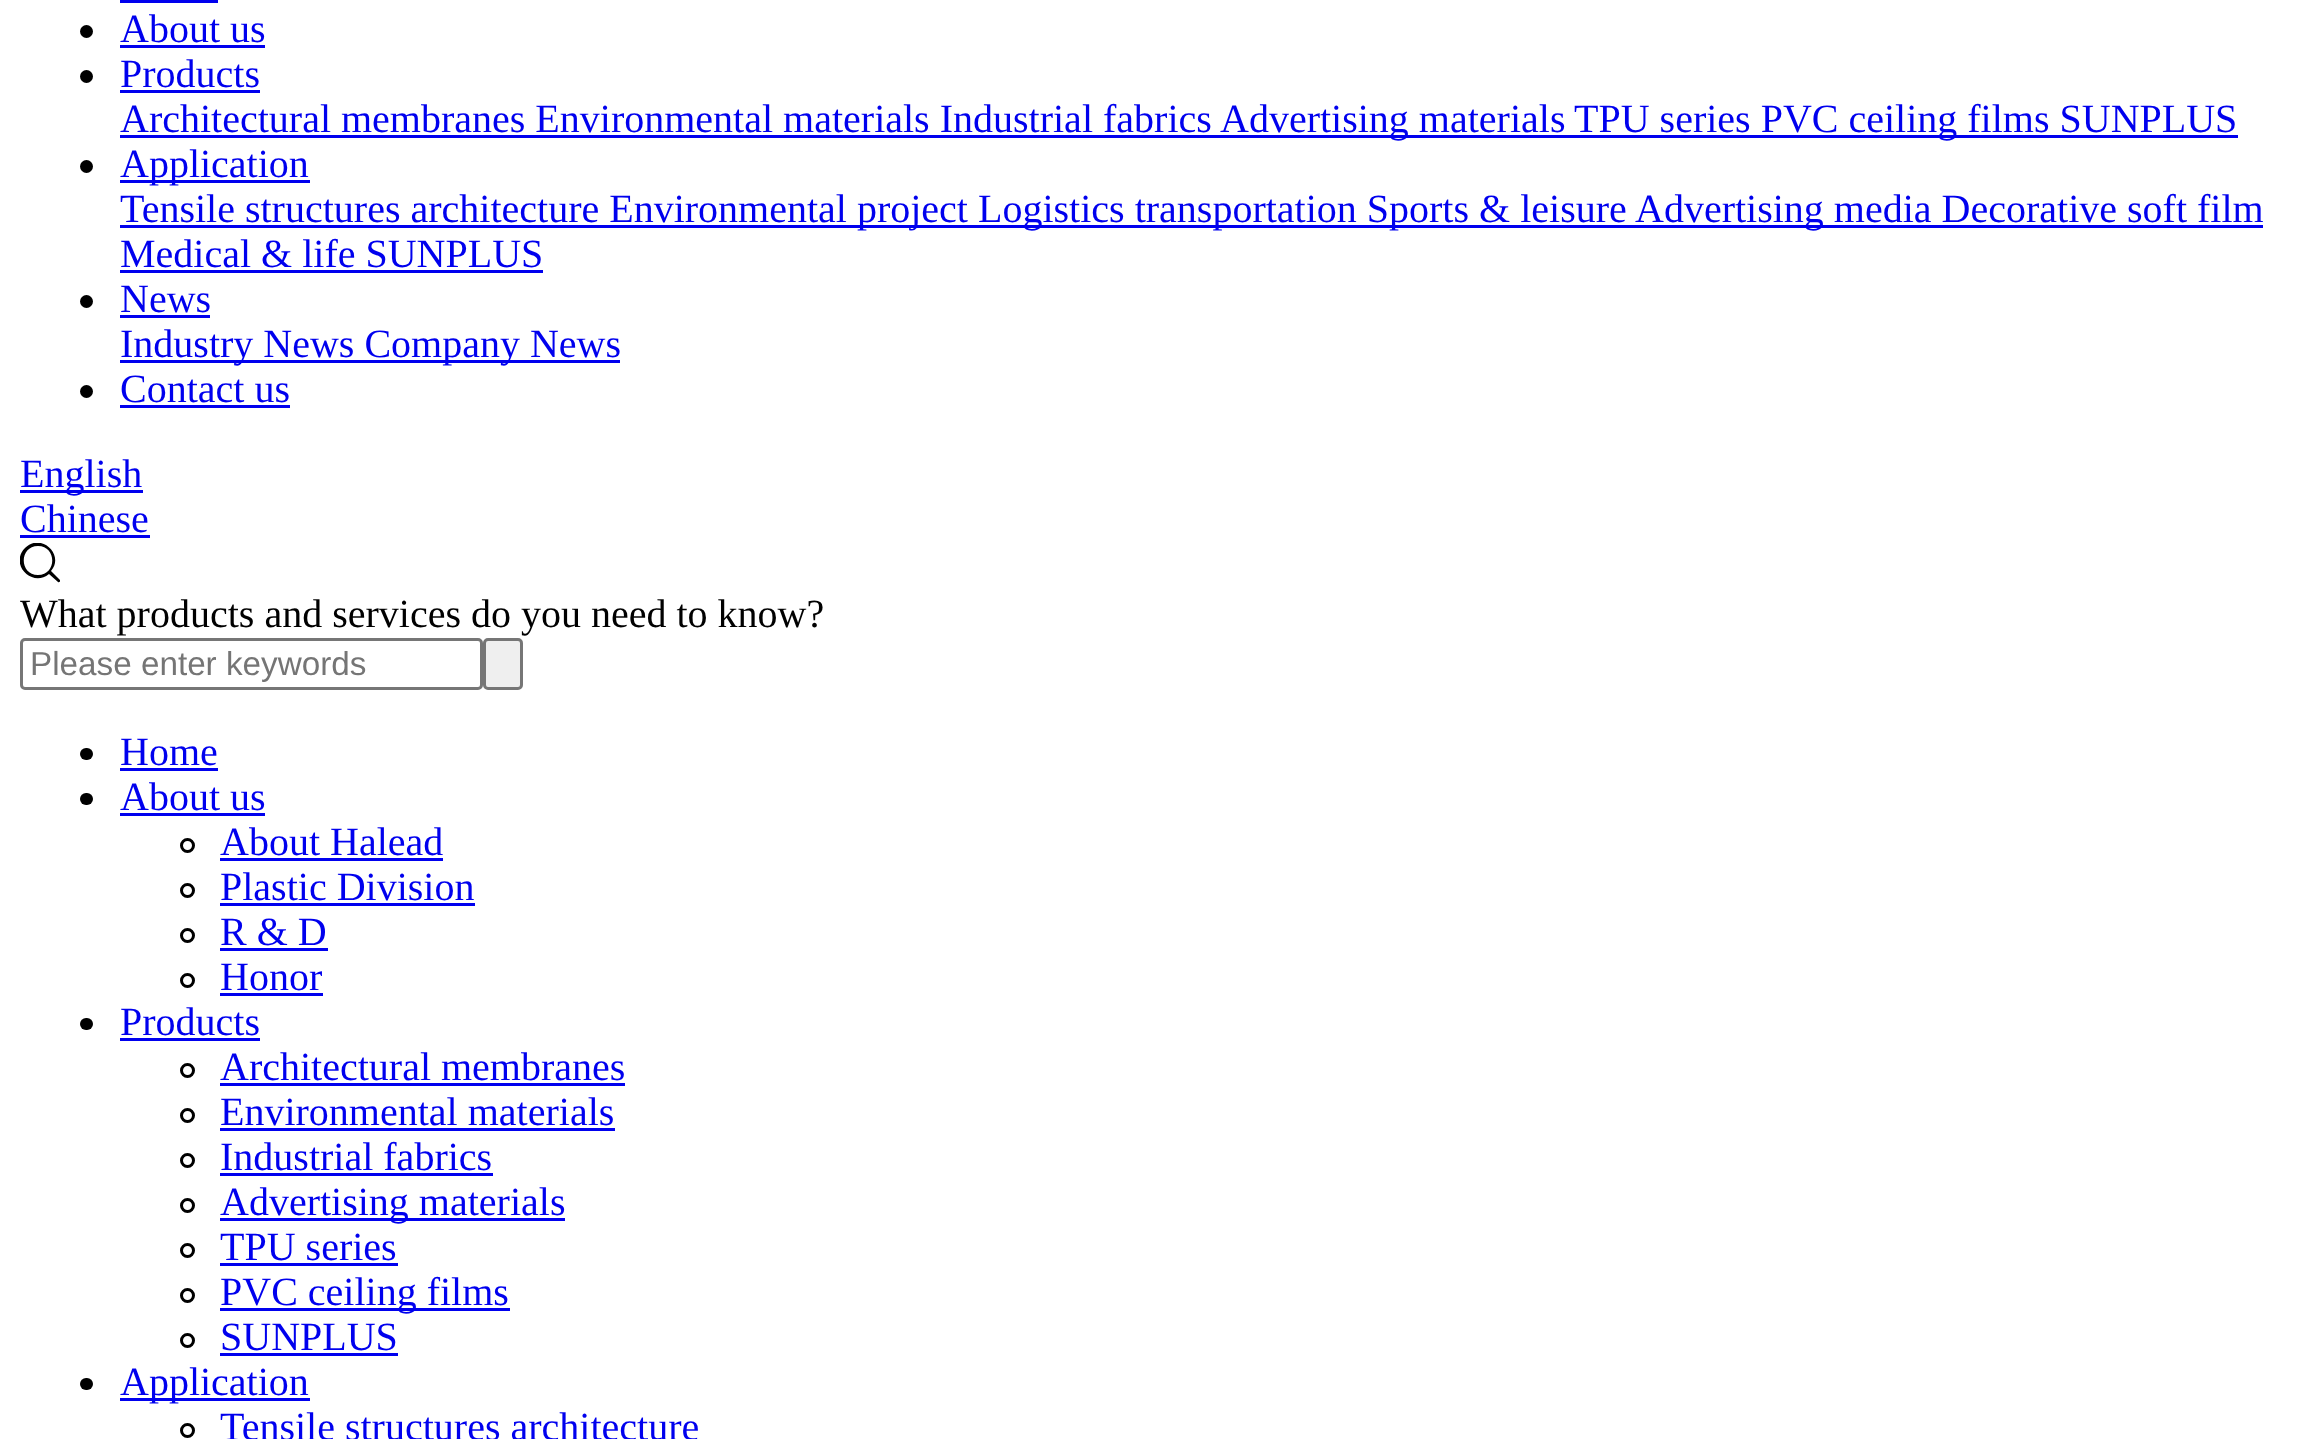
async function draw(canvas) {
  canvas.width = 2300;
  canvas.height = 1439;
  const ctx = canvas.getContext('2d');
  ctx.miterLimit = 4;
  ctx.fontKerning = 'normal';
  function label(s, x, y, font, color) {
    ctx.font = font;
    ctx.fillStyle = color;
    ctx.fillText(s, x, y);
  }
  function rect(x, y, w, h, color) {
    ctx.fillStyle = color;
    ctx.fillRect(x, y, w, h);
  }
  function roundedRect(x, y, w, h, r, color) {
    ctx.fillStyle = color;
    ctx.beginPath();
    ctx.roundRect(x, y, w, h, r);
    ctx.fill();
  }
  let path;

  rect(0, 0, 2300, 1439, '#fff');
  rect(120, 0, 98, 3, '#00e');
  ctx.fillStyle = '#000';
  ctx.beginPath();
  ctx.arc(86.5, 31.5, 6.5, 0, 2 * Math.PI);
  ctx.fill();
  label('About us', 120, 42, '40px Liberation Serif', '#00e');
  rect(120, 45, 145, 3, '#00e');
  ctx.fillStyle = '#000';
  ctx.beginPath();
  ctx.arc(86.5, 76.5, 6.5, 0, 2 * Math.PI);
  ctx.fill();
  label('Products', 120, 87, '40px Liberation Serif', '#00e');
  rect(120, 90, 140, 3, '#00e');
  label('Architectural membranes Environmental materials Industrial fabrics', 120, 132, '40px Liberation Serif', '#00e');
  rect(120, 135, 2118, 3, '#00e');
  label('Advertising materials', 1220, 132, '40px Liberation Serif', '#00e');
  label('TPU series PVC ceiling films SUNPLUS', 1574, 132, '40px Liberation Serif', '#00e');
  ctx.fillStyle = '#000';
  ctx.beginPath();
  ctx.arc(86.5, 166.5, 6.5, 0, 2 * Math.PI);
  ctx.fill();
  rect(120, 180, 190, 3, '#00e');
  label('Application', 120, 177, '40px Liberation Serif', '#00e');
  rect(120, 225, 2143, 3, '#00e');
  label('Tensile structures architecture Environmental project Logistics transportation Sports & leisure', 120, 222, '40px Liberation Serif', '#00e');
  label('Advertising media Decorative soft film', 1635, 222, '40px Liberation Serif', '#00e');
  label('Medical & life SUNPLUS', 120, 267, '40px Liberation Serif', '#00e');
  rect(120, 270, 423, 3, '#00e');
  ctx.fillStyle = '#000';
  ctx.beginPath();
  ctx.arc(86.5, 301.5, 6.5, 0, 2 * Math.PI);
  ctx.fill();
  label('News', 120, 312, '40px Liberation Serif', '#00e');
  rect(120, 315, 90, 3, '#00e');
  rect(120, 360, 500, 3, '#00e');
  label('Industry News Company News', 120, 357, '40px Liberation Serif', '#00e');
  ctx.fillStyle = '#000';
  ctx.beginPath();
  ctx.arc(86.5, 391.5, 6.5, 0, 2 * Math.PI);
  ctx.fill();
  label('Contact us', 120, 402, '40px Liberation Serif', '#00e');
  rect(120, 405, 170, 3, '#00e');
  rect(20, 490, 123, 3, '#00e');
  label('English', 20, 487, '40px Liberation Serif', '#00e');
  label('Chinese', 20, 532, '40px Liberation Serif', '#00e');
  rect(20, 535, 130, 3, '#00e');
  ctx.save();
  ctx.beginPath();
  ctx.rect(20, 543, 40, 40);
  ctx.clip();
  ctx.fillStyle = '#000';
  path = new Path2D('M60 580L51 571C65 555 41 532 25 548C9 564 32 588 49 574L58 582C59 583 61 581 60 580ZM38 575C19 575 19 546 38 546C57 546 57 575 38 575Z');
  ctx.fill(path);
  ctx.restore();
  label('What products and services do you need to know?', 20, 627, '40px Liberation Serif', '#000');
  ctx.beginPath();
  ctx.roundRect(21.5, 639.5, 460, 49, 3.5);
  ctx.strokeStyle = '#767676';
  ctx.lineWidth = 3;
  ctx.stroke();
  label('Please enter keywords', 30, 675, '33.25px Liberation Sans', '#757575');
  ctx.fillStyle = '#efefef';
  ctx.beginPath();
  ctx.roundRect(484.5, 639.5, 37, 49, 3.5);
  ctx.fill();
  ctx.stroke();
  roundedRect(80, 748, 13, 12, 6, '#000');
  label('Home', 120, 765, '40px Liberation Serif', '#00e');
  rect(120, 768, 98, 3, '#00e');
  roundedRect(80, 793, 13, 12, 6, '#000');
  label('About us', 120, 810, '40px Liberation Serif', '#00e');
  rect(120, 813, 145, 3, '#00e');
  ctx.beginPath();
  ctx.arc(187.5, 845.5, 6, 0, 2 * Math.PI);
  ctx.strokeStyle = '#000';
  ctx.stroke();
  label('About Halead', 220, 855, '40px Liberation Serif', '#00e');
  rect(220, 858, 223, 3, '#00e');
  ctx.beginPath();
  ctx.arc(187.5, 890.5, 6, 0, 2 * Math.PI);
  ctx.stroke();
  label('Plastic Division', 220, 900, '40px Liberation Serif', '#00e');
  rect(220, 903, 255, 3, '#00e');
  ctx.beginPath();
  ctx.arc(187.5, 935.5, 6, 0, 2 * Math.PI);
  ctx.stroke();
  label('R & D', 220, 945, '40px Liberation Serif', '#00e');
  rect(220, 948, 108, 3, '#00e');
  ctx.beginPath();
  ctx.arc(187.5, 980.5, 6, 0, 2 * Math.PI);
  ctx.stroke();
  label('Honor', 220, 990, '40px Liberation Serif', '#00e');
  rect(220, 993, 103, 3, '#00e');
  roundedRect(80, 1018, 13, 12, 6, '#000');
  label('Products', 120, 1035, '40px Liberation Serif', '#00e');
  rect(120, 1038, 140, 3, '#00e');
  ctx.beginPath();
  ctx.arc(187.5, 1070.5, 6, 0, 2 * Math.PI);
  ctx.stroke();
  label('Architectural membranes', 220, 1080, '40px Liberation Serif', '#00e');
  rect(220, 1083, 405, 3, '#00e');
  ctx.beginPath();
  ctx.arc(187.5, 1115.5, 6, 0, 2 * Math.PI);
  ctx.stroke();
  label('Environmental materials', 220, 1125, '40px Liberation Serif', '#00e');
  rect(220, 1128, 395, 3, '#00e');
  ctx.beginPath();
  ctx.arc(187.5, 1160.5, 6, 0, 2 * Math.PI);
  ctx.stroke();
  label('Industrial fabrics', 220, 1170, '40px Liberation Serif', '#00e');
  rect(220, 1173, 273, 3, '#00e');
  ctx.beginPath();
  ctx.arc(187.5, 1205.5, 6, 0, 2 * Math.PI);
  ctx.stroke();
  rect(220, 1218, 345, 3, '#00e');
  label('Advertising materials', 220, 1215, '40px Liberation Serif', '#00e');
  ctx.beginPath();
  ctx.arc(187.5, 1250.5, 6, 0, 2 * Math.PI);
  ctx.stroke();
  label('TPU series', 220, 1260, '40px Liberation Serif', '#00e');
  rect(220, 1263, 178, 3, '#00e');
  ctx.beginPath();
  ctx.arc(187.5, 1295.5, 6, 0, 2 * Math.PI);
  ctx.stroke();
  rect(220, 1308, 290, 3, '#00e');
  label('PVC ceiling films', 220, 1305, '40px Liberation Serif', '#00e');
  ctx.beginPath();
  ctx.arc(187.5, 1340.5, 6, 0, 2 * Math.PI);
  ctx.stroke();
  label('SUNPLUS', 220, 1350, '40px Liberation Serif', '#00e');
  rect(220, 1353, 178, 3, '#00e');
  roundedRect(80, 1378, 13, 12, 6, '#000');
  rect(120, 1398, 190, 3, '#00e');
  label('Application', 120, 1395, '40px Liberation Serif', '#00e');
  ctx.beginPath();
  ctx.arc(187.5, 1430.5, 6, 0, 2 * Math.PI);
  ctx.stroke();
  label('Tensile structures architecture', 220, 1440, '40px Liberation Serif', '#00e');
}

draw(document.querySelector('canvas'));
